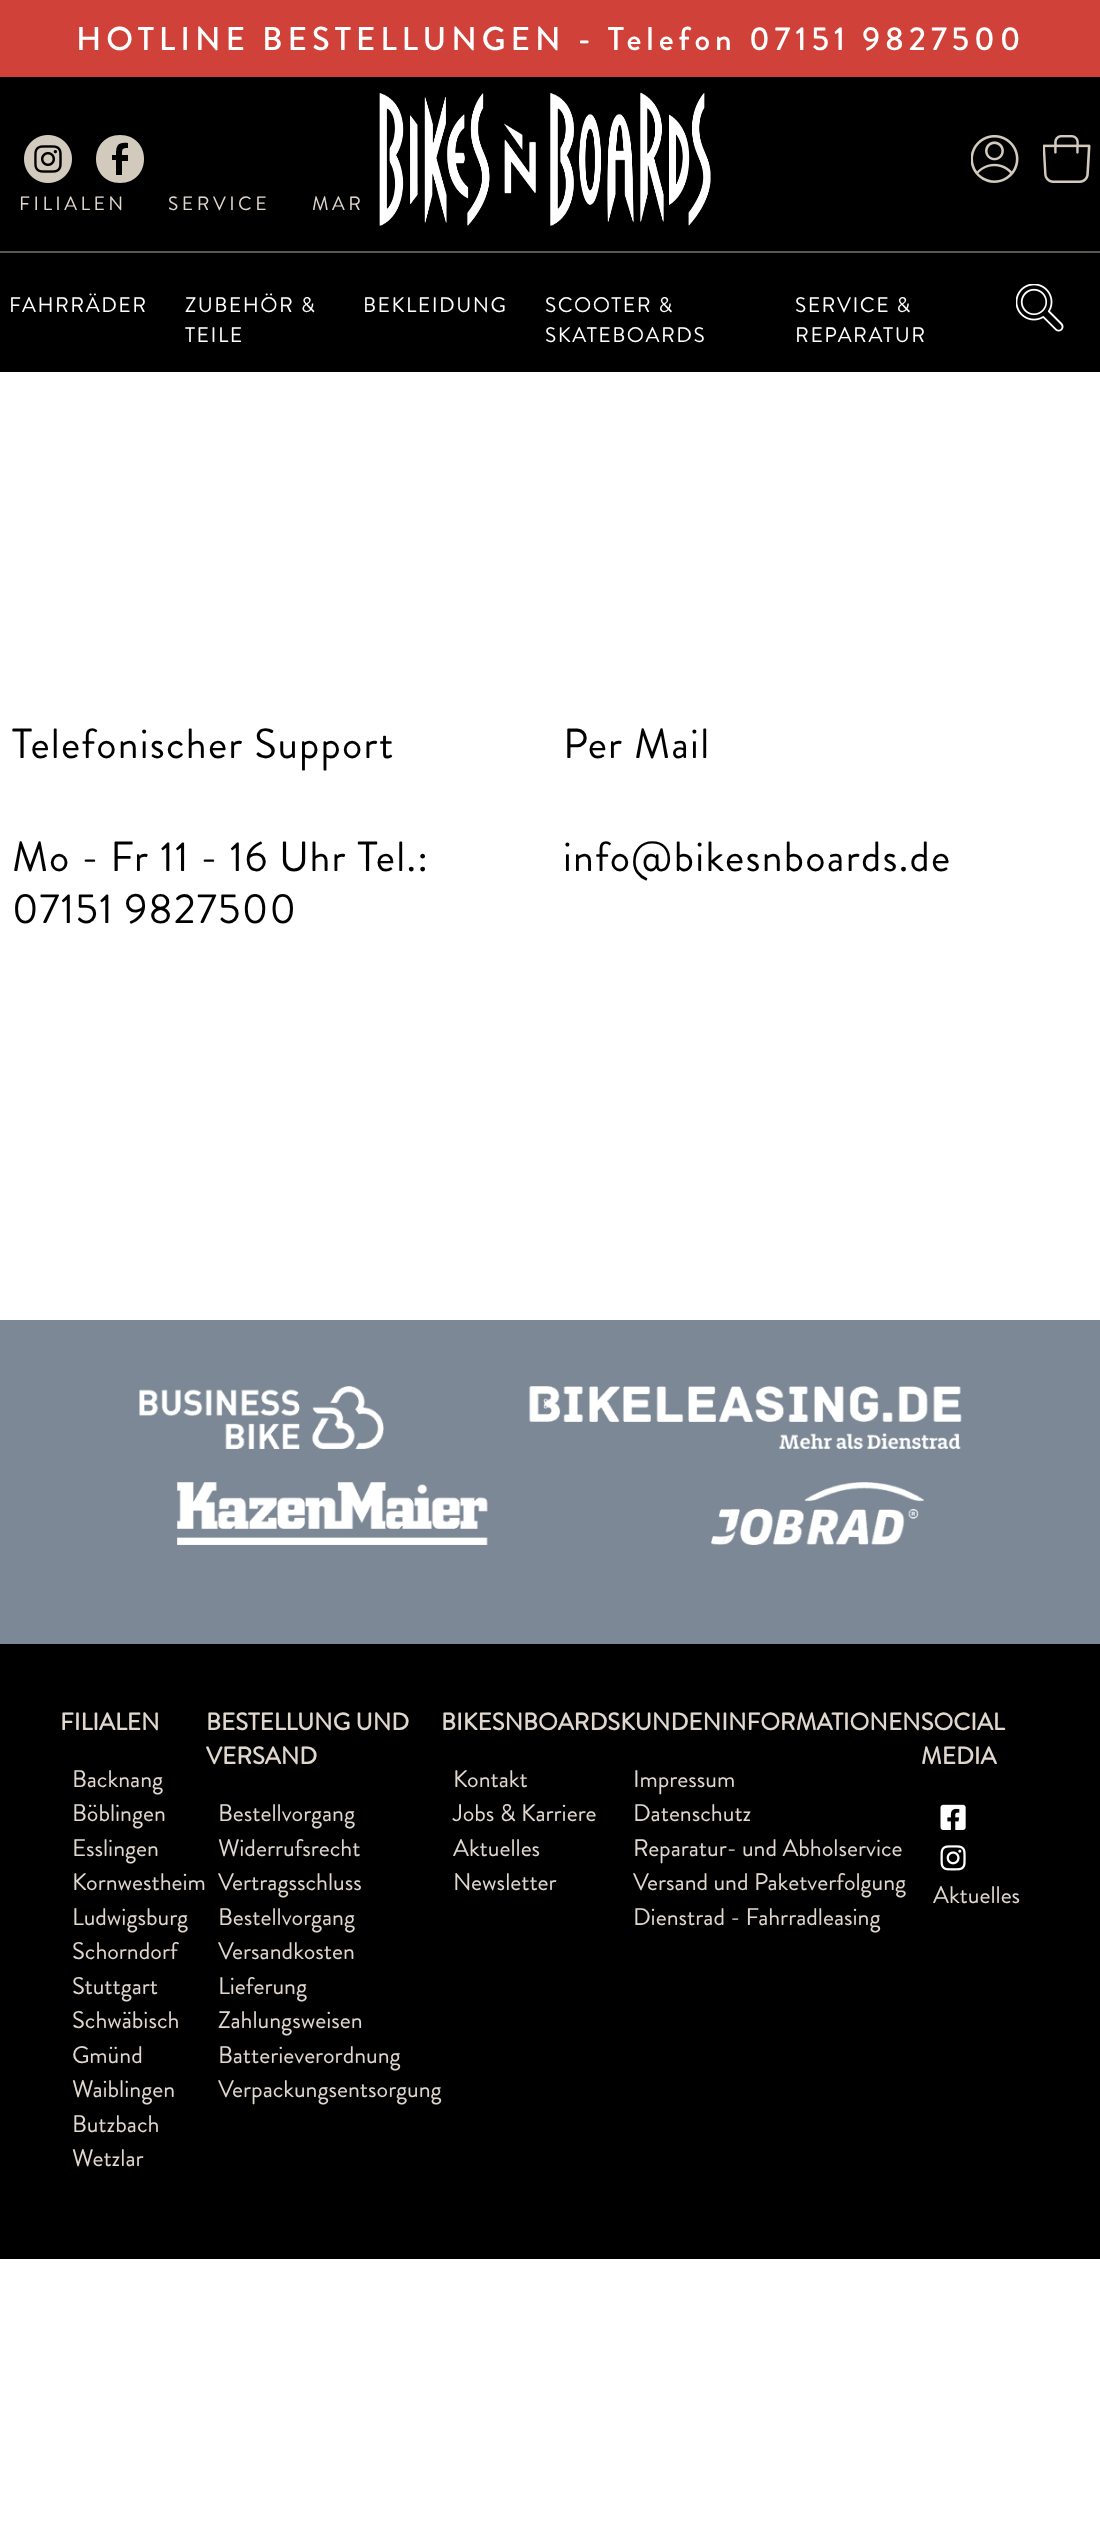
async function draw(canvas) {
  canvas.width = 1100;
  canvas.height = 2530;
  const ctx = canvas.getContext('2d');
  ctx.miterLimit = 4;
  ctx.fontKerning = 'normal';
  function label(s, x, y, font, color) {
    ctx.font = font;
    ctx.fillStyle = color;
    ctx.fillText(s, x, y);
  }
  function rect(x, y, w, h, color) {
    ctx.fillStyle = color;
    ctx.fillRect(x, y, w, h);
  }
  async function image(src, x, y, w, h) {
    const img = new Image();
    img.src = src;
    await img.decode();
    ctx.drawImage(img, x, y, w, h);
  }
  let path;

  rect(0, 0, 1100, 2530, '#fff');
  rect(0, 77, 1100, 295, '#000');
  rect(0, 0, 1100, 77, '#d04239');
  ctx.letterSpacing = '4.95px';
  label('HOTLINE BESTELLUNGEN - Telefon 07151 9827500', 76, 50, '500 33px Brandon Grotesque', '#fff');
  rect(0, 251, 1100, 2, '#5a5652');
  await image('assets/img1.png', 366, 92, 345, 134);
  await image('assets/img2.png', 971, 135, 48, 48);
  await image('assets/img3.png', 1043, 135, 48, 48);
  await image('assets/img4.png', 24, 135, 48, 48);
  ctx.fillStyle = '#d2cabd';
  path = new Path2D('M120 183C152 183 152 135 120 135C88 135 88 183 120 183ZM112 155H116C116 145 118 142 128 143V148C122 148 122 149 122 155H128V161H122V175H116V160H112Z');
  ctx.fill(path, 'evenodd');
  ctx.letterSpacing = '3.5px';
  label('FILIALEN', 19, 210, '19.25px Brandon Grotesque', '#e0d7ce');
  label('SERVICE', 168, 210, '19.25px Brandon Grotesque', '#e0d7ce');
  label('MAR', 312, 210, '19.25px Brandon Grotesque', '#e0d7ce');
  ctx.letterSpacing = '1.5px';
  label('FAHRRÄDER', 9, 312, '21px Brandon Grotesque', '#fff');
  label('ZUBEHÖR &', 185, 312, '21px Brandon Grotesque', '#fff');
  label('TEILE', 185, 342, '21px Brandon Grotesque', '#fff');
  label('BEKLEIDUNG', 363, 312, '21px Brandon Grotesque', '#fff');
  label('SCOOTER &', 545, 312, '21px Brandon Grotesque', '#fff');
  label('SKATEBOARDS', 545, 342, '21px Brandon Grotesque', '#fff');
  label('SERVICE &', 795, 312, '21px Brandon Grotesque', '#fff');
  label('REPARATUR', 795, 342, '21px Brandon Grotesque', '#fff');
  await image('assets/img5.png', 1016, 284, 48, 48);
  ctx.letterSpacing = '1.25px';
  label('Telefonischer Support', 12, 758, '42px Brandon Grotesque', '#000');
  label('Mo - Fr 11 - 16 Uhr Tel.:', 12, 871, '42px Brandon Grotesque', '#000');
  label('07151 9827500', 12, 923, '42px Brandon Grotesque', '#000');
  label('Per Mail', 563, 758, '42px Brandon Grotesque', '#000');
  label('info@bikesnboards.de', 563, 871, '42px Brandon Grotesque', '#000');
  rect(0, 1644, 1100, 615, '#000');
  rect(0, 1320, 1100, 324, '#7c8895');
  await image('assets/img6.png', 139, 1386, 245, 63);
  await image('assets/img7.png', 529, 1386, 433, 63);
  await image('assets/img8.png', 177, 1482, 311, 63);
  await image('assets/img9.png', 711, 1482, 213, 63);
  ctx.letterSpacing = '0px';
  label('FILIALEN', 60, 1730, 'bold 24px Brandon Grotesque', '#e0d7ce');
  label('Backnang', 72, 1787, '24px Brandon Grotesque', '#e0d7ce');
  label('Böblingen', 72, 1821, '24px Brandon Grotesque', '#e0d7ce');
  label('Esslingen', 72, 1856, '24px Brandon Grotesque', '#e0d7ce');
  label('Kornwestheim', 72, 1890, '24px Brandon Grotesque', '#e0d7ce');
  label('Ludwigsburg', 72, 1925, '24px Brandon Grotesque', '#e0d7ce');
  label('Schorndorf', 72, 1959, '24px Brandon Grotesque', '#e0d7ce');
  label('Stuttgart', 72, 1994, '24px Brandon Grotesque', '#e0d7ce');
  label('Schwäbisch', 72, 2028, '24px Brandon Grotesque', '#e0d7ce');
  label('Gmünd', 72, 2063, '24px Brandon Grotesque', '#e0d7ce');
  label('Waiblingen', 72, 2097, '24px Brandon Grotesque', '#e0d7ce');
  label('Butzbach', 72, 2132, '24px Brandon Grotesque', '#e0d7ce');
  label('Wetzlar', 72, 2166, '24px Brandon Grotesque', '#e0d7ce');
  label('BESTELLUNG UND', 206, 1730, 'bold 24px Brandon Grotesque', '#e0d7ce');
  label('VERSAND', 206, 1764, 'bold 24px Brandon Grotesque', '#e0d7ce');
  label('Bestellvorgang', 218, 1821, '24px Brandon Grotesque', '#e0d7ce');
  label('Widerrufsrecht', 218, 1856, '24px Brandon Grotesque', '#e0d7ce');
  label('Vertragsschluss', 218, 1890, '24px Brandon Grotesque', '#e0d7ce');
  label('Bestellvorgang', 218, 1925, '24px Brandon Grotesque', '#e0d7ce');
  label('Versandkosten', 218, 1959, '24px Brandon Grotesque', '#e0d7ce');
  label('Lieferung', 218, 1994, '24px Brandon Grotesque', '#e0d7ce');
  label('Zahlungsweisen', 218, 2028, '24px Brandon Grotesque', '#e0d7ce');
  label('Batterieverordnung', 218, 2063, '24px Brandon Grotesque', '#e0d7ce');
  label('Verpackungsentsorgung', 218, 2097, '24px Brandon Grotesque', '#e0d7ce');
  label('BIKESNBOARDSKUNDENINFORMATIONENSOCIAL', 441, 1730, 'bold 24px Brandon Grotesque', '#e0d7ce');
  label('Kontakt', 453, 1787, '24px Brandon Grotesque', '#e0d7ce');
  label('Jobs & Karriere', 453, 1821, '24px Brandon Grotesque', '#e0d7ce');
  label('Aktuelles', 453, 1856, '24px Brandon Grotesque', '#e0d7ce');
  label('Newsletter', 453, 1890, '24px Brandon Grotesque', '#e0d7ce');
  label('Impressum', 633, 1787, '24px Brandon Grotesque', '#e0d7ce');
  label('Datenschutz', 633, 1821, '24px Brandon Grotesque', '#e0d7ce');
  label('Reparatur- und Abholservice', 633, 1856, '24px Brandon Grotesque', '#e0d7ce');
  label('Versand und Paketverfolgung', 633, 1890, '24px Brandon Grotesque', '#e0d7ce');
  label('Dienstrad - Fahrradleasing', 633, 1925, '24px Brandon Grotesque', '#e0d7ce');
  label('MEDIA', 921, 1764, 'bold 24px Brandon Grotesque', '#e0d7ce');
  await image('assets/img10.png', 940, 1804, 26, 26);
  await image('assets/img11.png', 940, 1845, 26, 26);
  label('Aktuelles', 933, 1903, '24px Brandon Grotesque', '#e0d7ce');
}

draw(document.querySelector('canvas'));
